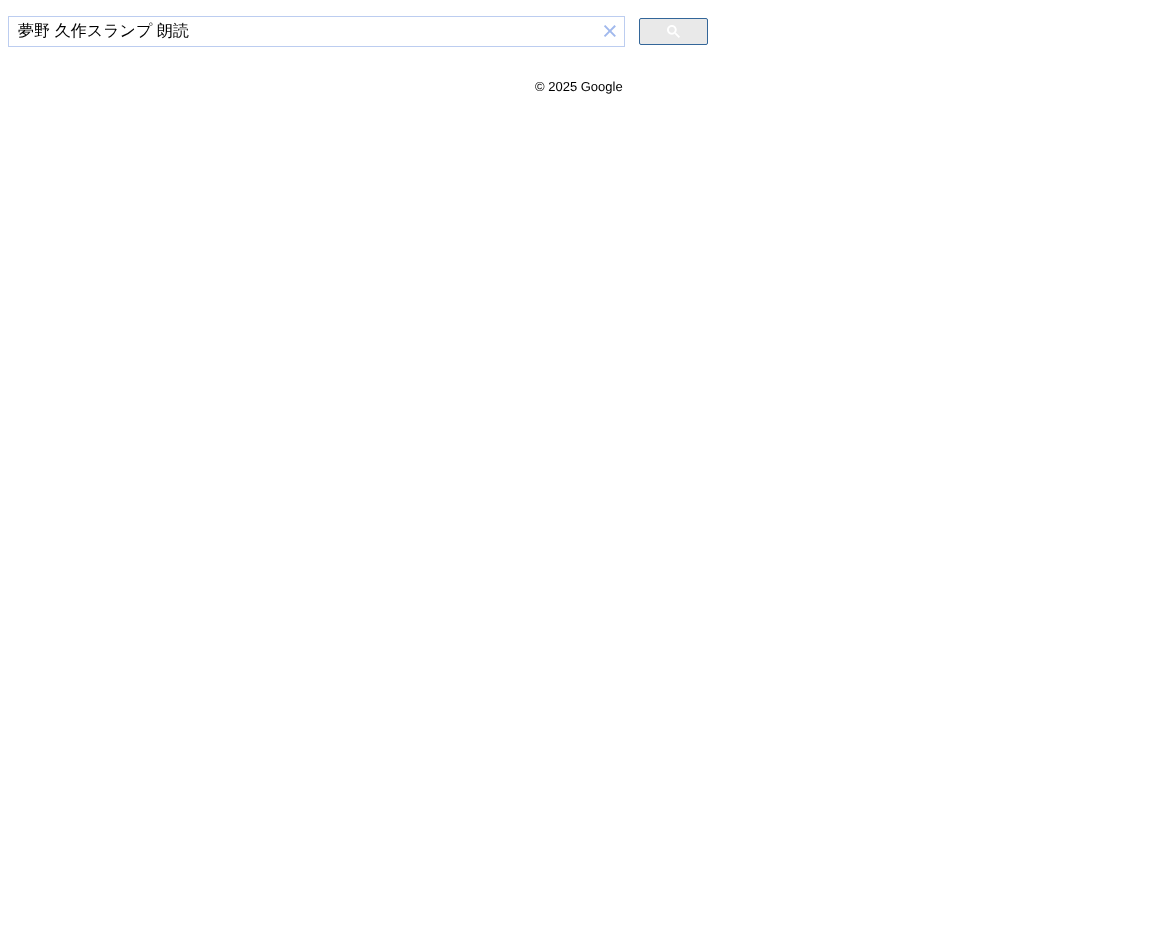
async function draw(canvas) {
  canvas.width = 1159;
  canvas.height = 927;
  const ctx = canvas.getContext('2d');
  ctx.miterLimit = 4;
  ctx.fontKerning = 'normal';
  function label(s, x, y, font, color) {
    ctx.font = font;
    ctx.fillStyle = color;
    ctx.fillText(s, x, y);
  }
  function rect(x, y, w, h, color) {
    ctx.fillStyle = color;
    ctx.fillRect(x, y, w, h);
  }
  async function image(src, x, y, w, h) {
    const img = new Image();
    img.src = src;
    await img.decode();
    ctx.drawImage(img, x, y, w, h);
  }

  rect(0, 0, 1159, 927, '#fff');
  ctx.strokeStyle = '#bccdf0';
  ctx.strokeRect(8.5, 16.5, 616, 30);
  label('夢野 久作スランプ 朗読', 18, 36, '500 16px WenQuanYi Zen Hei', '#000');
  label('×', 602, 40, '27px Liberation Sans', '#a1b9ed');
  ctx.fillStyle = '#e9e9e9';
  ctx.beginPath();
  ctx.roundRect(639.5, 18.5, 68, 26, 1.5);
  ctx.fill();
  ctx.strokeStyle = '#369';
  ctx.stroke();
  await image('assets/img1.png', 667, 25, 13, 13);
  label('© 2025 Google', 535, 91, '13px Liberation Sans', '#000');
}

draw(document.querySelector('canvas'));
